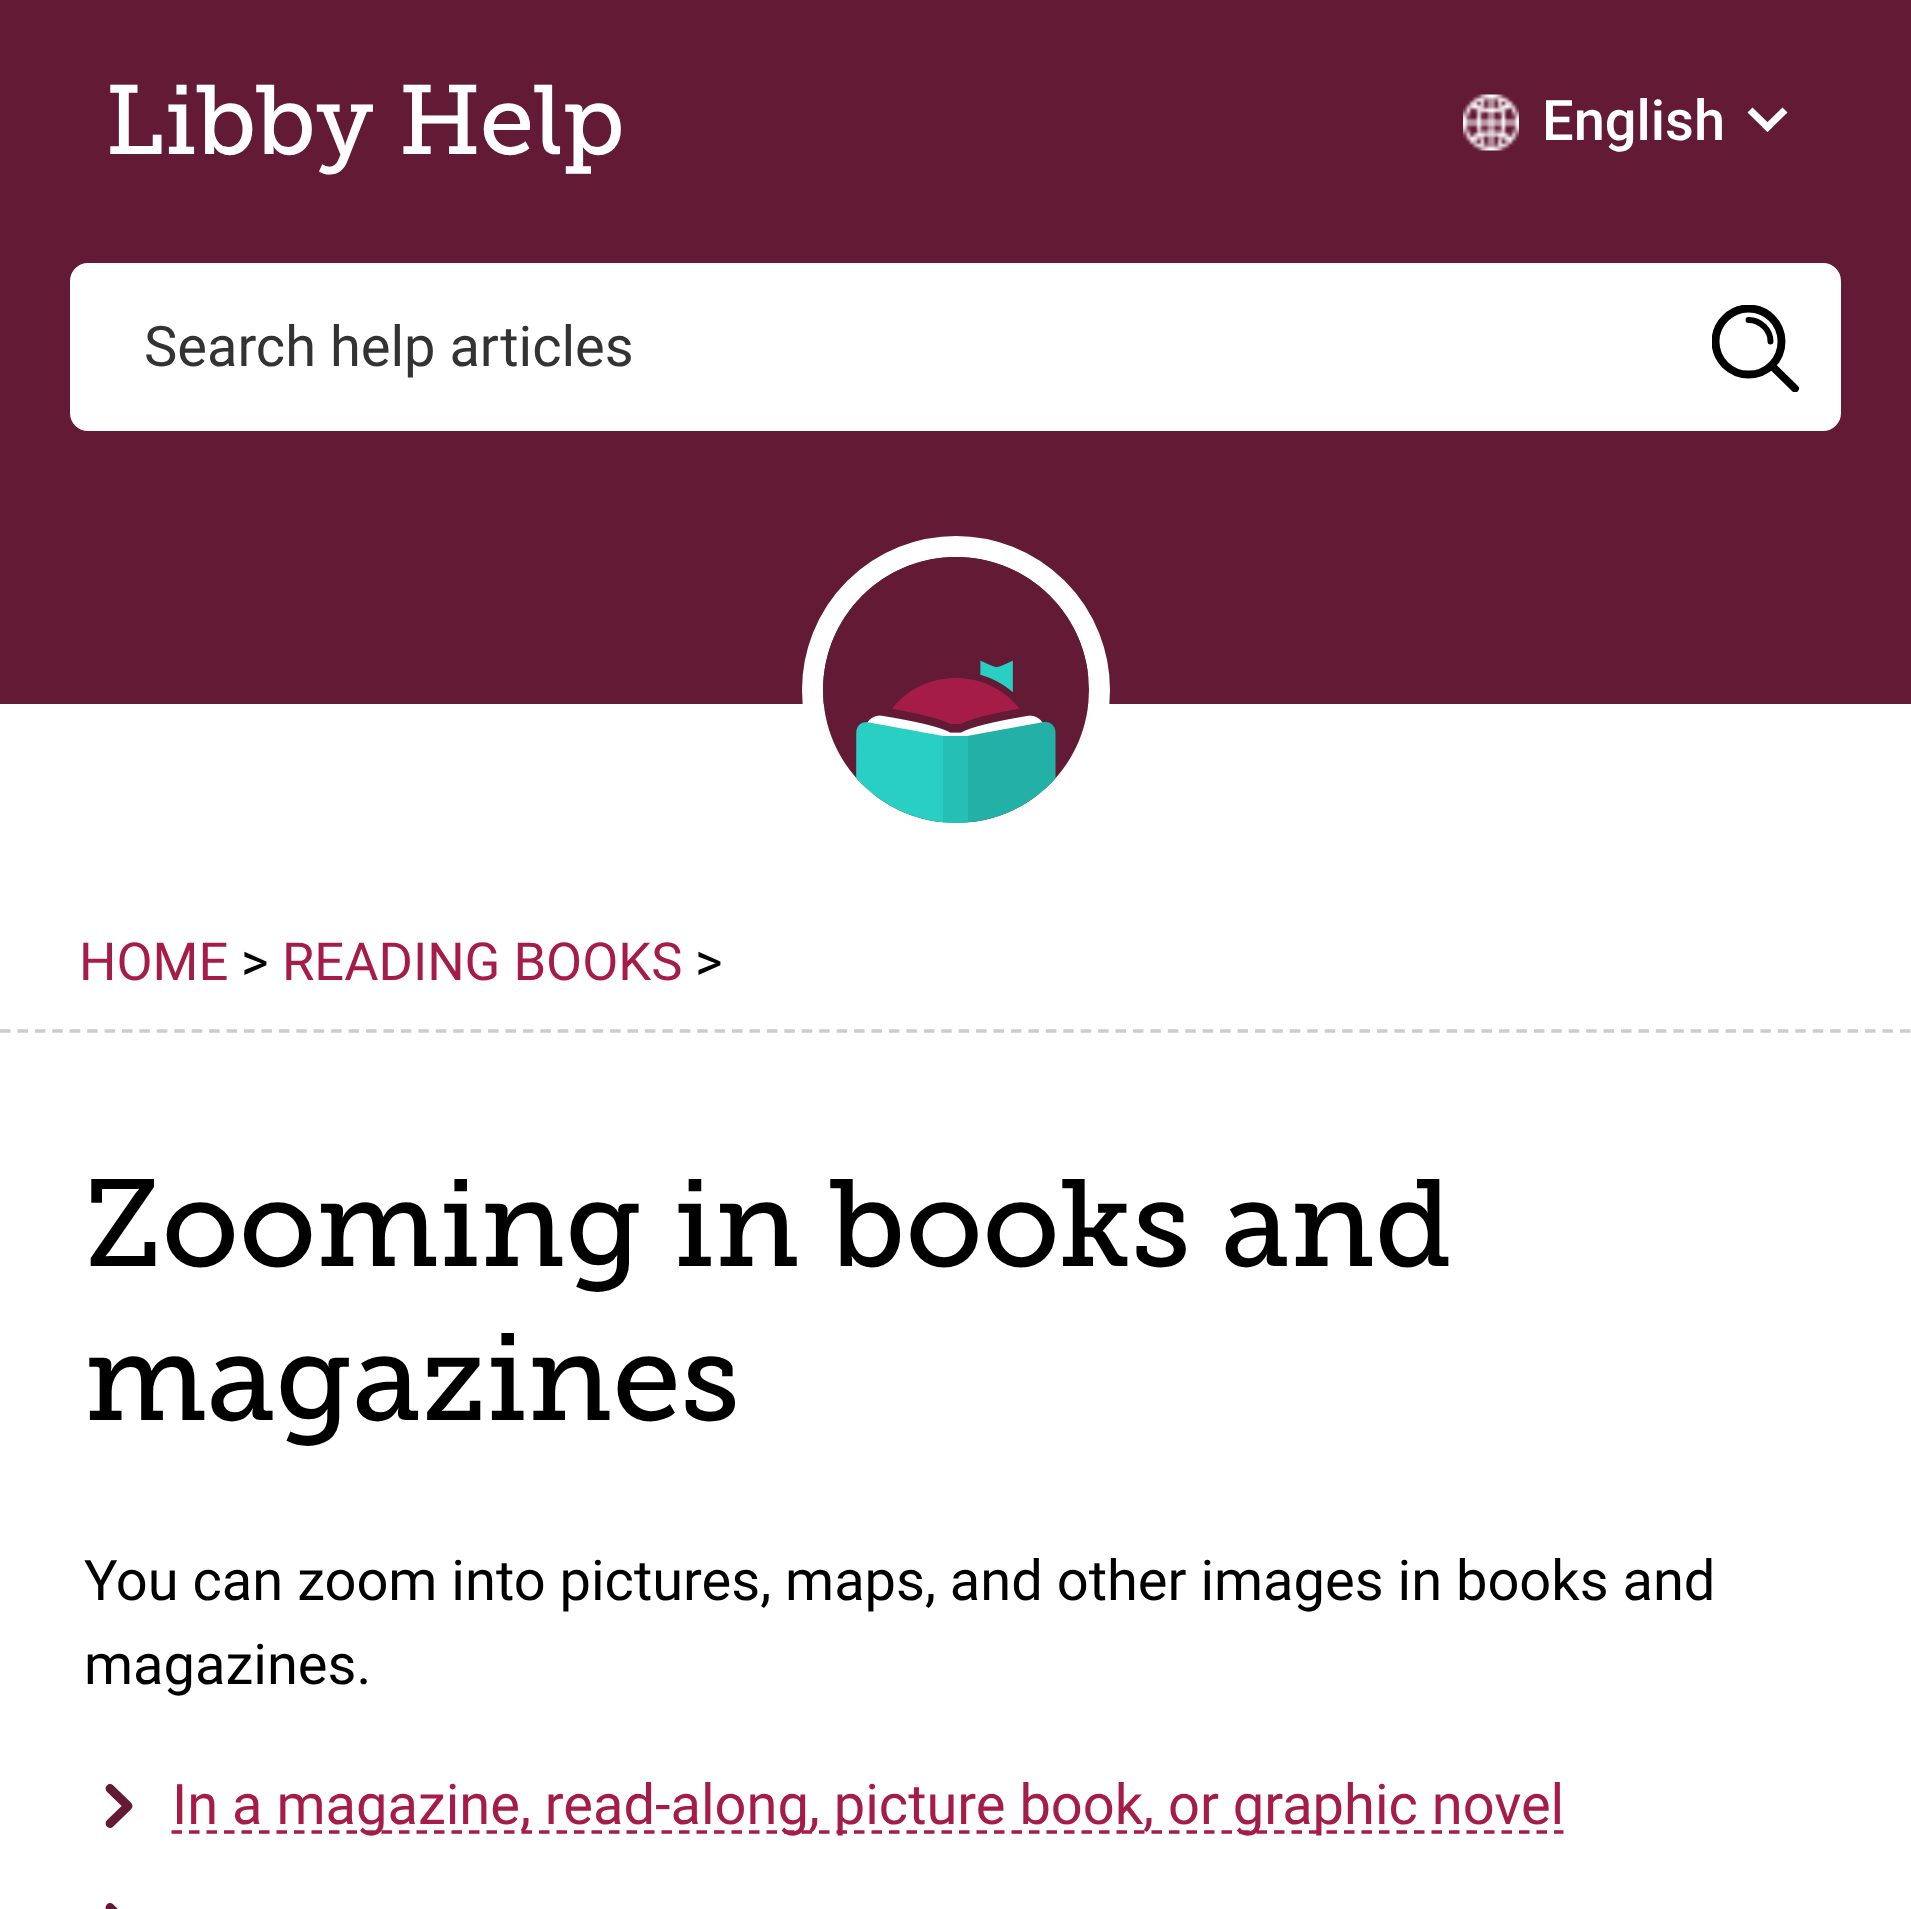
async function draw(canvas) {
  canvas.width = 1911;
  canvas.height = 1909;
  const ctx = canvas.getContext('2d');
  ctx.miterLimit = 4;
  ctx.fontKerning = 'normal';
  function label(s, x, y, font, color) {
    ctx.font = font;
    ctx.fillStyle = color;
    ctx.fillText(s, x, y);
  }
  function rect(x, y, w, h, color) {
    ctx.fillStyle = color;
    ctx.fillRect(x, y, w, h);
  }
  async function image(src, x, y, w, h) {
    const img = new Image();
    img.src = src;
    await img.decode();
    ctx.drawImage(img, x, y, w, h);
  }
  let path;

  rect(0, 0, 1911, 1909, '#fff');
  rect(0, 0, 1911, 704, '#631a35');
  label('Libby Help', 105, 154, '98px Museo Slab', '#fff');
  await image('assets/img1.png', 1463, 94, 56, 57);
  label('English', 1542, 140, '500 56px Roboto', '#fff');
  path = new Path2D('M1782.5 107.5L1787.5 112.5L1767.5 132L1762.5 127Z');
  ctx.fill(path);
  path = new Path2D('M1752.5 107.5L1772.5 127L1767.5 132L1747.5 112.5Z');
  ctx.fill(path);
  ctx.beginPath();
  ctx.roundRect(72, 265, 1767, 164, 16);
  ctx.fill();
  ctx.strokeStyle = '#fff';
  ctx.lineWidth = 4;
  ctx.stroke();
  label('Search help articles', 144, 366, '56px Roboto', '#333');
  ctx.save();
  ctx.beginPath();
  ctx.rect(1712, 305, 87, 87);
  ctx.clip();
  path = new Path2D('M1781.5 341.5C1781.5 360 1767 374.5 1748.5 374.5C1730.5 374.5 1715.5 360 1715.5 341.5C1715.5 323.5 1730.5 308.5 1748.5 308.5C1767 308.5 1781.5 323.5 1781.5 341.5Z');
  ctx.strokeStyle = '#000';
  ctx.lineWidth = 7.9;
  ctx.stroke(path);
  path = new Path2D('M1771.5 365.5L1795 388.5');
  ctx.lineCap = 'round';
  ctx.stroke(path);
  ctx.restore();
  path = new Path2D('M1770.5 341.5C1770.5 330 1760.5 320 1748.5 320');
  ctx.strokeStyle = '#000';
  ctx.lineWidth = 5.9;
  ctx.lineCap = 'round';
  ctx.stroke(path);
  ctx.beginPath();
  ctx.arc(956, 690, 143.5, 0, 2 * Math.PI);
  ctx.strokeStyle = '#fff';
  ctx.lineWidth = 21;
  ctx.stroke();
  await image('assets/img2.png', 823, 557, 265, 266);
  path = new Path2D('M0 1031H1911');
  ctx.strokeStyle = '#ccc';
  ctx.lineWidth = 3.5;
  ctx.lineCap = 'butt';
  ctx.setLineDash([10.5, 6.93]);
  ctx.stroke(path);
  label('HOME', 79, 980, '52.5px Roboto', '#a61c49');
  label('>', 241, 980, '52.5px Roboto', '#000');
  label('READING BOOKS', 282, 980, '52.5px Roboto', '#a61c49');
  label('>', 695, 980, '52.5px Roboto', '#000');
  label('Zooming in books and', 84, 1266, '123.25px Museo Slab', '#000');
  label('magazines', 84, 1420, '123.25px Museo Slab', '#000');
  label('You can zoom into pictures, maps, and other images in books and', 84, 1600, '56px Roboto', '#000');
  label('magazines.', 84, 1684, '56px Roboto', '#000');
  path = new Path2D('M110 1788.5L128 1806L110 1823.5');
  ctx.strokeStyle = '#631a35';
  ctx.lineWidth = 8.8;
  ctx.lineCap = 'round';
  ctx.lineJoin = 'round';
  ctx.setLineDash([]);
  ctx.stroke(path);
  path = new Path2D('M171.5 1832H1563.5');
  ctx.strokeStyle = '#a61c49';
  ctx.lineWidth = 3.5;
  ctx.lineCap = 'butt';
  ctx.lineJoin = 'miter';
  ctx.setLineDash([10.5, 7]);
  ctx.stroke(path);
  label('In a magazine, read-along, picture book, or graphic novel', 172, 1824, '56px Roboto', '#a61c49');
  path = new Path2D('M110 1907.5L128 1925L110 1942.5');
  ctx.strokeStyle = '#631a35';
  ctx.lineWidth = 8.8;
  ctx.lineCap = 'round';
  ctx.lineJoin = 'round';
  ctx.setLineDash([]);
  ctx.stroke(path);
}

draw(document.querySelector('canvas'));
